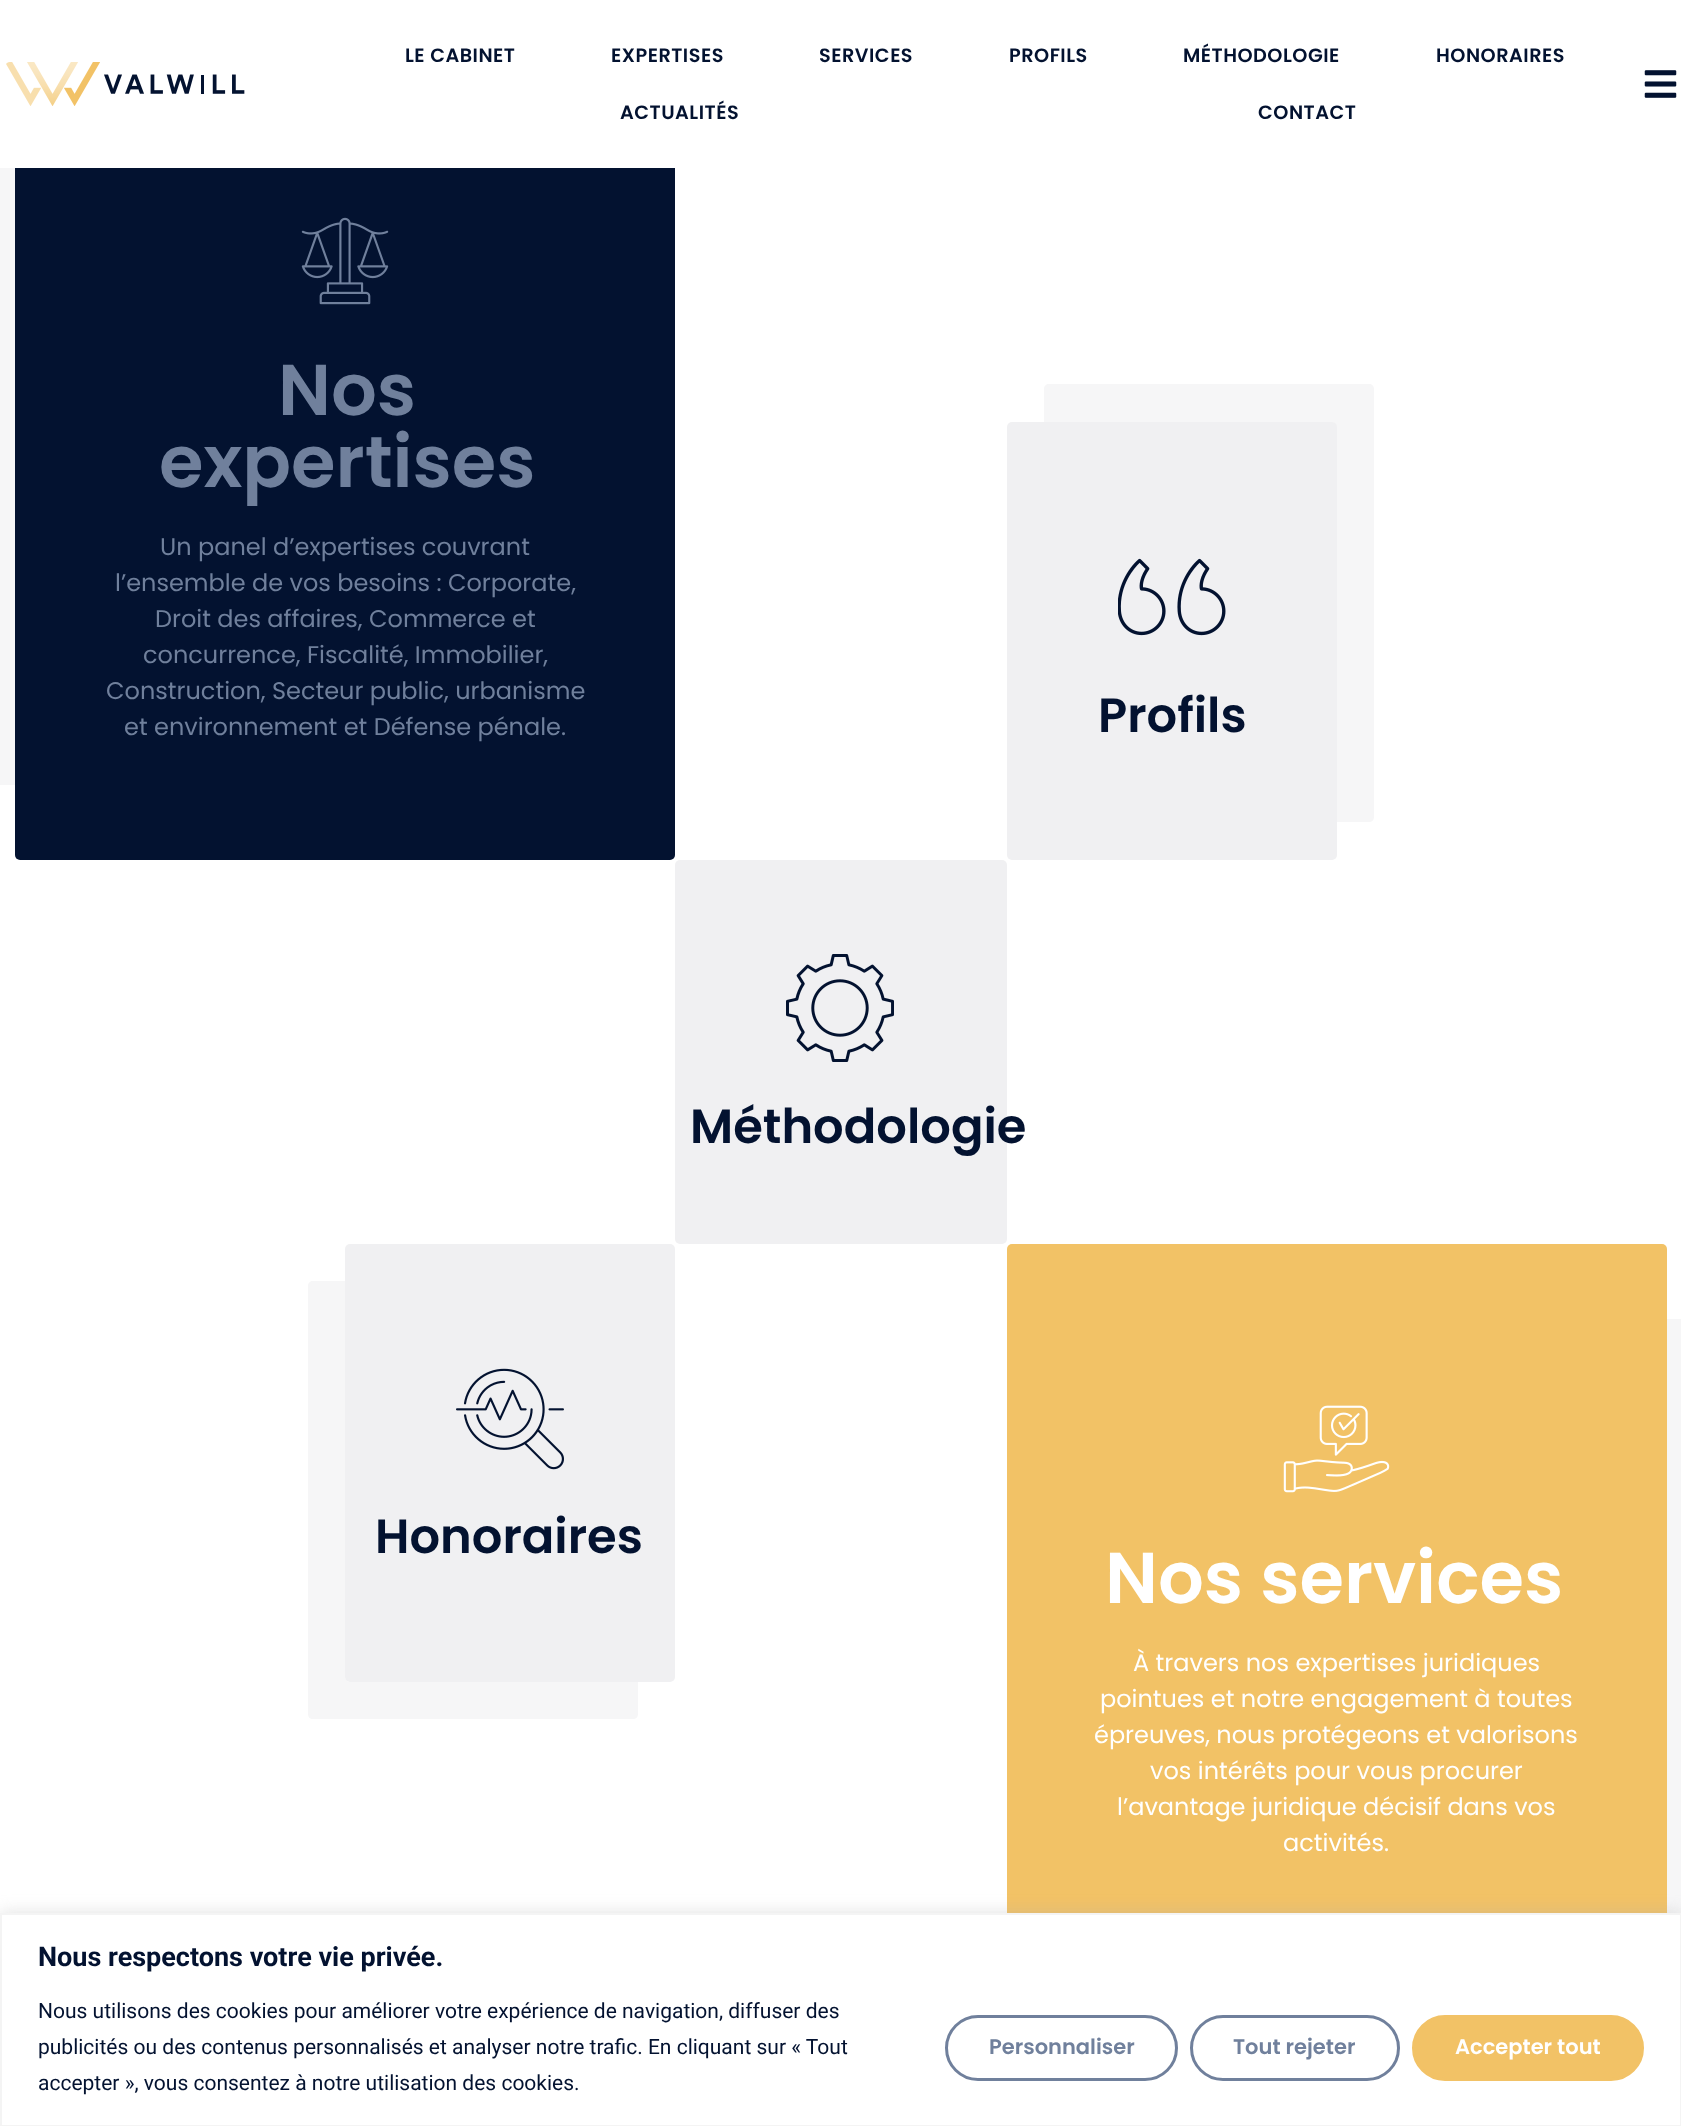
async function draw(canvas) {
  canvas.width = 1681;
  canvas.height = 2126;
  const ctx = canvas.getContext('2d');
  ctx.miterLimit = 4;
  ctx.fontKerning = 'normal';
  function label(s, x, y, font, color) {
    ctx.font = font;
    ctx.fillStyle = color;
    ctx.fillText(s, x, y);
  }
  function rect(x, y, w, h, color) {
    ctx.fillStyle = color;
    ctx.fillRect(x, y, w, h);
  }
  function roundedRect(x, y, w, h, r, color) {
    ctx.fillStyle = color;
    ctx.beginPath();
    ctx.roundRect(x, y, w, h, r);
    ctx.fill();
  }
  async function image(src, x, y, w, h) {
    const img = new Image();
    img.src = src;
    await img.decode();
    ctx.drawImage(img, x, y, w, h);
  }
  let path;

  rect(0, 0, 1681, 2126, '#fff');
  ctx.fillStyle = '#f6f6f7';
  path = new Path2D('M-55 17C-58 17-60 19-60 22V780C-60 783-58 785-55 785H15V96C15 94 17 92 20 92H600V22C600 19 598 17 595 17Z');
  ctx.fill(path);
  roundedRect(15, 92, 660, 768, 5, '#031230');
  rect(0, 17, 675, 151, '#fff');
  await image('assets/img1.png', 6, 62, 239, 44);
  ctx.letterSpacing = '0.5px';
  label('LE CABINET', 405, 62, '600 19.25px Poppins', '#031230');
  label('EXPERTISES', 611, 62, '600 19.25px Poppins', '#031230');
  label('SERVICES', 819, 62, '600 19.25px Poppins', '#031230');
  label('PROFILS', 1009, 62, '600 19.25px Poppins', '#031230');
  label('MÉTHODOLOGIE', 1183, 62, '600 19.25px Poppins', '#031230');
  label('HONORAIRES', 1436, 62, '600 19.25px Poppins', '#031230');
  label('ACTUALITÉS', 620, 119, '600 19.25px Poppins', '#031230');
  label('CONTACT', 1258, 119, '600 19.25px Poppins', '#031230');
  await image('assets/img2.png', 1644, 70, 33, 28);
  await image('assets/img3.png', 301, 217, 88, 88);
  ctx.letterSpacing = '0px';
  label('Nos', 278, 415, '600 72px Poppins', '#70809c');
  label('expertises', 159, 487, '600 72px Poppins', '#70809c');
  label('Un panel d’expertises couvrant', 160, 555, '24px Poppins', '#70809c');
  label('l’ensemble de vos besoins : Corporate,', 115, 591, '24px Poppins', '#70809c');
  label('Droit des affaires, Commerce et', 155, 627, '24px Poppins', '#70809c');
  label('concurrence, Fiscalité, Immobilier,', 143, 663, '24px Poppins', '#70809c');
  label('Construction, Secteur public, urbanisme', 106, 699, '24px Poppins', '#70809c');
  label('et environnement et Défense pénale.', 124, 735, '24px Poppins', '#70809c');
  ctx.fillStyle = '#f6f6f7';
  path = new Path2D('M1049 384C1046 384 1044 386 1044 389V422H1332C1334 422 1336 424 1336 426V822H1369C1372 822 1374 820 1374 817V389C1374 386 1372 384 1369 384Z');
  ctx.fill(path);
  roundedRect(1007, 422, 330, 438, 5, '#f0f0f2');
  await image('assets/img4.png', 1118, 558, 108, 78);
  label('Profils', 1098, 732, '600 48px Poppins', '#031230');
  roundedRect(675, 860, 332, 384, 5, '#f0f0f2');
  await image('assets/img5.png', 786, 954, 108, 108);
  label('Méthodologie', 690, 1143, '600 48px Poppins', '#031230');
  ctx.fillStyle = '#f6f6f7';
  path = new Path2D('M313 1281C310 1281 308 1283 308 1286V1714C308 1717 310 1719 313 1719H633C636 1719 638 1717 638 1714V1682H350C347 1682 345 1679 345 1677V1281Z');
  ctx.fill(path);
  roundedRect(345, 1244, 330, 438, 5, '#f0f0f2');
  await image('assets/img6.png', 456, 1368, 108, 102);
  label('Honoraires', 375, 1553, '600 48px Poppins', '#031230');
  ctx.fillStyle = '#f6f6f7';
  path = new Path2D('M1082 2012V2082C1082 2085 1084 2087 1087 2087H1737C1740 2087 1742 2085 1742 2082V1324C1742 1321 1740 1319 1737 1319H1666V2007C1666 2009 1664 2012 1662 2012Z');
  ctx.fill(path);
  roundedRect(1007, 1244, 660, 768, 5, '#f2c266');
  await image('assets/img7.png', 1283, 1405, 107, 88);
  label('Nos services', 1105, 1603, '600 72px Poppins', '#fff');
  label('À travers nos expertises juridiques', 1133, 1671, '24px Poppins', '#fff');
  label('pointues et notre engagement à toutes', 1100, 1707, '24px Poppins', '#fff');
  label('épreuves, nous protégeons et valorisons', 1094, 1743, '24px Poppins', '#fff');
  label('vos intérêts pour vous procurer', 1150, 1779, '24px Poppins', '#fff');
  label('l’avantage juridique décisif dans vos', 1117, 1815, '24px Poppins', '#fff');
  label('activités.', 1283, 1851, '24px Poppins', '#fff');
  ctx.fillStyle = '#acabab4d';
  ctx.filter = 'blur(7.5px)';
  ctx.beginPath();
  ctx.rect(0, 1911, 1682, 215);
  ctx.fill();
  ctx.filter = 'none';
  ctx.fillStyle = '#fff';
  ctx.beginPath();
  ctx.rect(1, 1914, 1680, 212);
  ctx.fill();
  ctx.strokeStyle = '#f4f4f4';
  ctx.lineWidth = 2;
  ctx.stroke();
  label('Nous respectons votre vie privée.', 38, 1966, 'bold 27px Roboto', '#031230');
  label('Nous utilisons des cookies pour améliorer votre expérience de navigation, diffuser des', 38, 2018, '21px Roboto', '#031230');
  label('publicités ou des contenus personnalisés et analyser notre trafic. En cliquant sur « Tout', 38, 2054, '21px Roboto', '#031230');
  label('accepter », vous consentez à notre utilisation des cookies.', 38, 2090, '21px Roboto', '#031230');
  ctx.beginPath();
  ctx.roundRect(946.5, 2016.5, 230, 63, 31.5);
  ctx.strokeStyle = '#70809c';
  ctx.lineWidth = 3;
  ctx.stroke();
  label('Personnaliser', 989, 2054, '600 21px Poppins', '#70809c');
  ctx.beginPath();
  ctx.roundRect(1191.5, 2016.5, 207, 63, 31.5);
  ctx.stroke();
  label('Tout rejeter', 1233, 2054, '600 21px Poppins', '#70809c');
  ctx.fillStyle = '#f2c266';
  ctx.beginPath();
  ctx.roundRect(1413.5, 2016.5, 229, 63, 31.5);
  ctx.fill();
  ctx.strokeStyle = '#f2c266';
  ctx.stroke();
  label('Accepter tout', 1455, 2054, '600 21px Poppins', '#fff');
}

draw(document.querySelector('canvas'));
